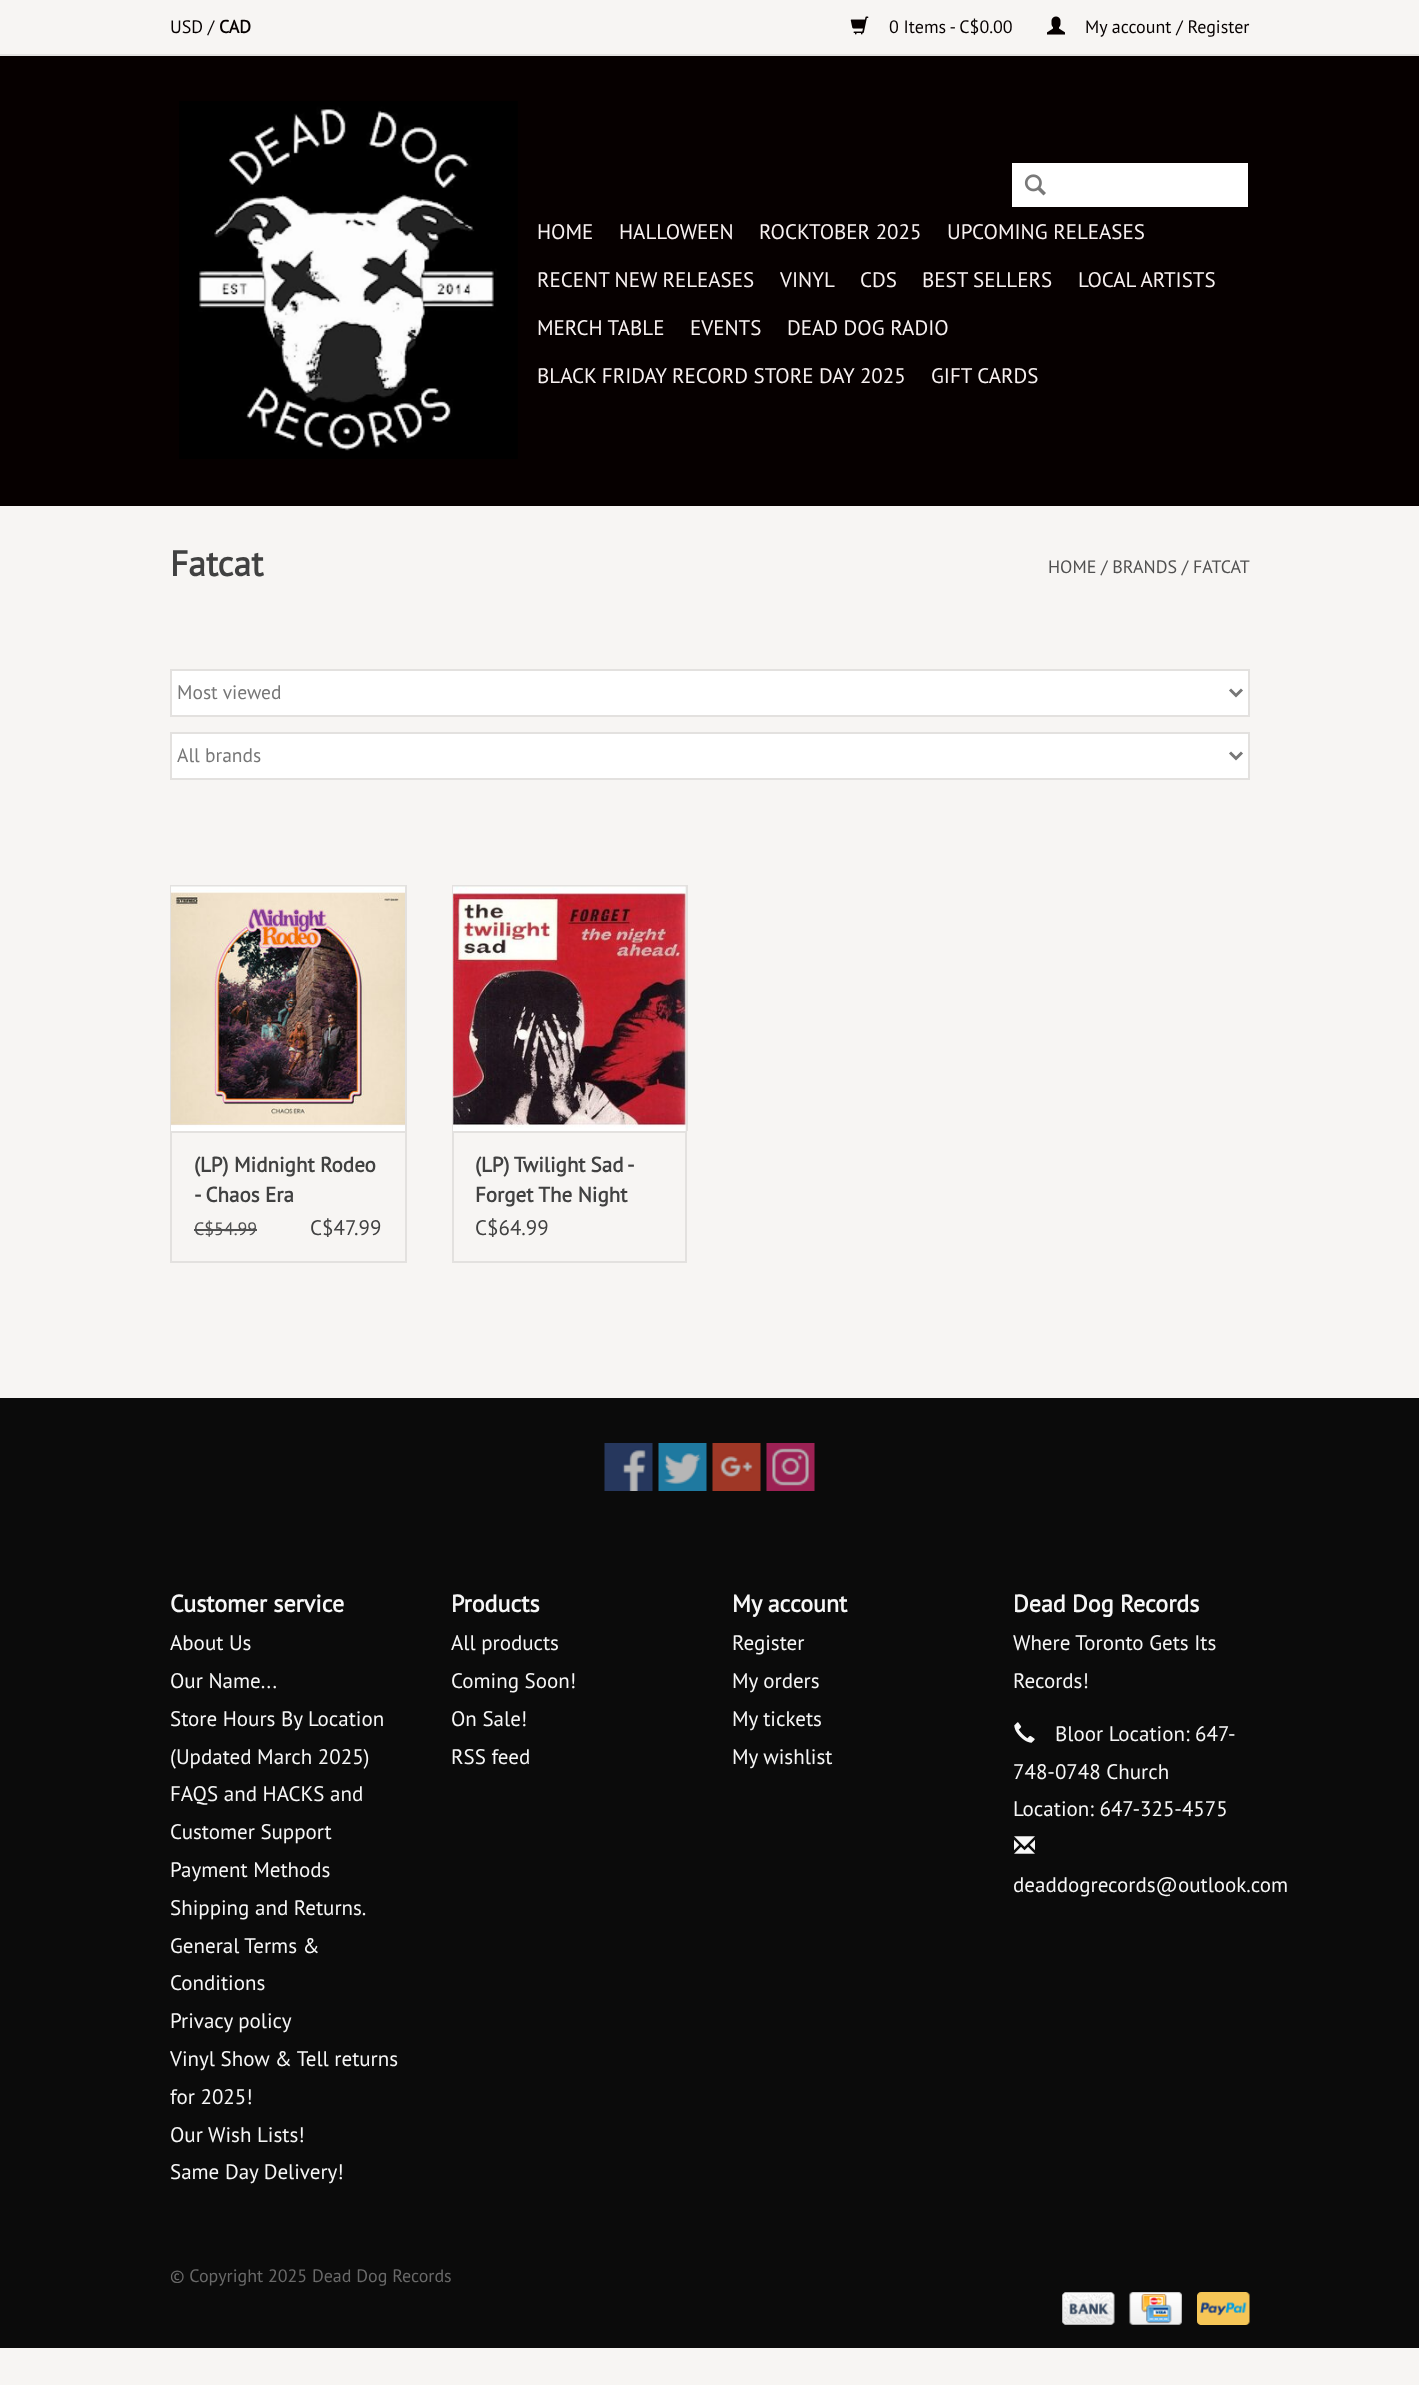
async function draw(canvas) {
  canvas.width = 1419;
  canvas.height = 2385;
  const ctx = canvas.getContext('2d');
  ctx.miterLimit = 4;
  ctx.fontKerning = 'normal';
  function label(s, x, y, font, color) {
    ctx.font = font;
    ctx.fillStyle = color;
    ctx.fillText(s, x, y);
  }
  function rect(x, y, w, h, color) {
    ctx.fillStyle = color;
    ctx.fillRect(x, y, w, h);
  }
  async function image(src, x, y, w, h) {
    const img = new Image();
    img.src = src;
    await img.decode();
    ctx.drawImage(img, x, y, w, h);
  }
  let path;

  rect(0, 0, 1419, 2385, '#f7f5f3');
  rect(0, 56, 1419, 450, '#060000');
  rect(0, 54, 1419, 2, '#e5e3e1');
  label('USD /', 170, 33, '18px PT Sans', '#060000');
  label('CAD', 219, 33, 'bold 18px PT Sans', '#060000');
  await image('assets/img1.png', 850, 16, 19, 19);
  label('0 Items - C$0.00', 889, 33, '18px PT Sans', '#060000');
  await image('assets/img2.png', 1047, 16, 18, 19);
  label('My account / Register', 1085, 33, '18px PT Sans', '#060000');
  await image('assets/img3.png', 179, 101, 339, 358);
  rect(1012, 163, 236, 44, '#fff');
  await image('assets/img4.png', 1024, 174, 22, 22);
  label('HOME', 537, 239, '21px PT Sans', '#f8f1f1');
  label('HALLOWEEN', 619, 239, '21px PT Sans', '#f8f1f1');
  label('ROCKTOBER 2025', 759, 239, '21px PT Sans', '#f8f1f1');
  label('UPCOMING RELEASES', 947, 239, '21px PT Sans', '#f8f1f1');
  label('RECENT NEW RELEASES', 537, 287, '21px PT Sans', '#f8f1f1');
  label('VINYL', 780, 287, '21px PT Sans', '#f8f1f1');
  label('CDS', 860, 287, '21px PT Sans', '#f8f1f1');
  label('BEST SELLERS', 922, 287, '21px PT Sans', '#f8f1f1');
  label('LOCAL ARTISTS', 1078, 287, '21px PT Sans', '#f8f1f1');
  label('MERCH TABLE', 537, 335, '21px PT Sans', '#f8f1f1');
  label('EVENTS', 690, 335, '21px PT Sans', '#f8f1f1');
  label('DEAD DOG RADIO', 787, 335, '21px PT Sans', '#f8f1f1');
  label('BLACK FRIDAY RECORD STORE DAY 2025', 537, 383, '21px PT Sans', '#f8f1f1');
  label('GIFT CARDS', 931, 383, '21px PT Sans', '#f8f1f1');
  label('Fatcat', 170, 576, 'bold 35.5px PT Sans', '#414141');
  label('HOME / BRANDS / FATCAT', 1048, 573, '18px PT Sans', '#505050');
  ctx.fillStyle = '#fff';
  ctx.beginPath();
  ctx.rect(171, 670, 1078, 46);
  ctx.fill();
  ctx.strokeStyle = '#e3e1df';
  ctx.lineWidth = 2;
  ctx.stroke();
  path = new Path2D('M1230 689.5L1236 695.5L1242 689.5');
  ctx.strokeStyle = '#777';
  ctx.lineWidth = 3;
  ctx.stroke(path);
  label('Most viewed', 177, 699, '19.5px PT Sans', '#777');
  ctx.fillStyle = '#fff';
  ctx.beginPath();
  ctx.rect(171, 733, 1078, 46);
  ctx.fill();
  ctx.strokeStyle = '#e3e1df';
  ctx.lineWidth = 2;
  ctx.stroke();
  path = new Path2D('M1230 752.5L1236 758.5L1242 752.5');
  ctx.strokeStyle = '#777';
  ctx.lineWidth = 3;
  ctx.stroke(path);
  label('All brands', 177, 762, '19.5px PT Sans', '#777');
  rect(170, 885, 237, 2, '#e3e1df');
  rect(405, 885, 2, 246, '#e3e1df');
  rect(170, 885, 2, 246, '#e3e1df');
  await image('assets/img5.png', 171, 886, 234, 245);
  ctx.strokeStyle = '#e3e1df';
  ctx.lineWidth = 2;
  ctx.strokeRect(171, 1132, 235, 130);
  label('(LP) Midnight Rodeo', 194, 1172, 'bold 21px PT Sans', '#414141');
  label('- Chaos Era', 194, 1202, 'bold 21px PT Sans', '#414141');
  label('C$54.99', 194, 1235, '18px PT Sans', '#505050');
  rect(194, 1229, 63, 2, '#505050');
  label('C$47.99', 310, 1235, '21px PT Sans', '#414141');
  rect(685, 887, 1, 244, '#efedeb');
  rect(452, 885, 235, 2, '#e3e1df');
  rect(686, 885, 2, 246, '#e3e1df');
  rect(452, 885, 2, 246, '#e3e1df');
  await image('assets/img6.png', 453, 886, 233, 245);
  ctx.strokeRect(453, 1132, 233, 130);
  ctx.wordSpacing = '-0.5px';
  label('(LP) Twilight Sad -', 475, 1172, 'bold 21px PT Sans', '#414141');
  ctx.wordSpacing = '0px';
  label('Forget The Night', 475, 1202, 'bold 21px PT Sans', '#414141');
  label('C$64.99', 475, 1235, '21px PT Sans', '#414141');
  rect(0, 1398, 1419, 950, '#0b0b0b');
  await image('assets/img7.png', 604, 1443, 49, 48);
  await image('assets/img8.png', 658, 1443, 49, 48);
  await image('assets/img9.png', 712, 1443, 49, 48);
  await image('assets/img10.png', 766, 1443, 49, 48);
  label('Customer service', 170, 1612, 'bold 24px PT Sans', '#f7f7f7');
  label('About Us', 170, 1650, '21px PT Sans', '#f7f7f7');
  label('Our Name...', 170, 1688, '21px PT Sans', '#f7f7f7');
  label('Store Hours By Location', 170, 1726, '21px PT Sans', '#f7f7f7');
  label('(Updated March 2025)', 170, 1764, '21px PT Sans', '#f7f7f7');
  label('FAQS and HACKS and', 170, 1801, '21px PT Sans', '#f7f7f7');
  label('Customer Support', 170, 1839, '21px PT Sans', '#f7f7f7');
  label('Payment Methods', 170, 1877, '21px PT Sans', '#f7f7f7');
  label('Shipping and Returns.', 170, 1915, '21px PT Sans', '#f7f7f7');
  label('General Terms &', 170, 1953, '21px PT Sans', '#f7f7f7');
  label('Conditions', 170, 1990, '21px PT Sans', '#f7f7f7');
  label('Privacy policy', 170, 2028, '21px PT Sans', '#f7f7f7');
  label('Vinyl Show & Tell returns', 170, 2066, '21px PT Sans', '#f7f7f7');
  label('for 2025!', 170, 2104, '21px PT Sans', '#f7f7f7');
  label('Our Wish Lists!', 170, 2142, '21px PT Sans', '#f7f7f7');
  label('Same Day Delivery!', 170, 2179, '21px PT Sans', '#f7f7f7');
  label('Products', 451, 1612, 'bold 24px PT Sans', '#f7f7f7');
  label('All products', 451, 1650, '21px PT Sans', '#f7f7f7');
  label('Coming Soon!', 451, 1688, '21px PT Sans', '#f7f7f7');
  label('On Sale!', 451, 1726, '21px PT Sans', '#f7f7f7');
  label('RSS feed', 451, 1764, '21px PT Sans', '#f7f7f7');
  label('My account', 732, 1612, 'bold 24px PT Sans', '#f7f7f7');
  label('Register', 732, 1650, '21px PT Sans', '#f7f7f7');
  label('My orders', 732, 1688, '21px PT Sans', '#f7f7f7');
  label('My tickets', 732, 1726, '21px PT Sans', '#f7f7f7');
  label('My wishlist', 732, 1764, '21px PT Sans', '#f7f7f7');
  label('Dead Dog Records', 1013, 1612, 'bold 24px PT Sans', '#f7f7f7');
  label('Where Toronto Gets Its', 1013, 1650, '21px PT Sans', '#f7f7f7');
  label('Records!', 1013, 1688, '21px PT Sans', '#f7f7f7');
  await image('assets/img11.png', 1014, 1722, 21, 21);
  label('Bloor Location: 647-', 1055, 1741, '21px PT Sans', '#f7f7f7');
  label('748-0748 Church', 1013, 1779, '21px PT Sans', '#f7f7f7');
  label('Location: 647-325-4575', 1013, 1816, '21px PT Sans', '#f7f7f7');
  await image('assets/img12.png', 1014, 1836, 21, 18);
  label('deaddogrecords@outlook.com', 1013, 1892, '21px PT Sans', '#f7f7f7');
  label('© Copyright 2025 Dead Dog Records', 170, 2282, '18px PT Sans', '#696969');
  await image('assets/img13.png', 1062, 2292, 53, 33);
  await image('assets/img14.png', 1129, 2292, 53, 33);
  await image('assets/img15.png', 1197, 2292, 53, 33);
}

draw(document.querySelector('canvas'));
